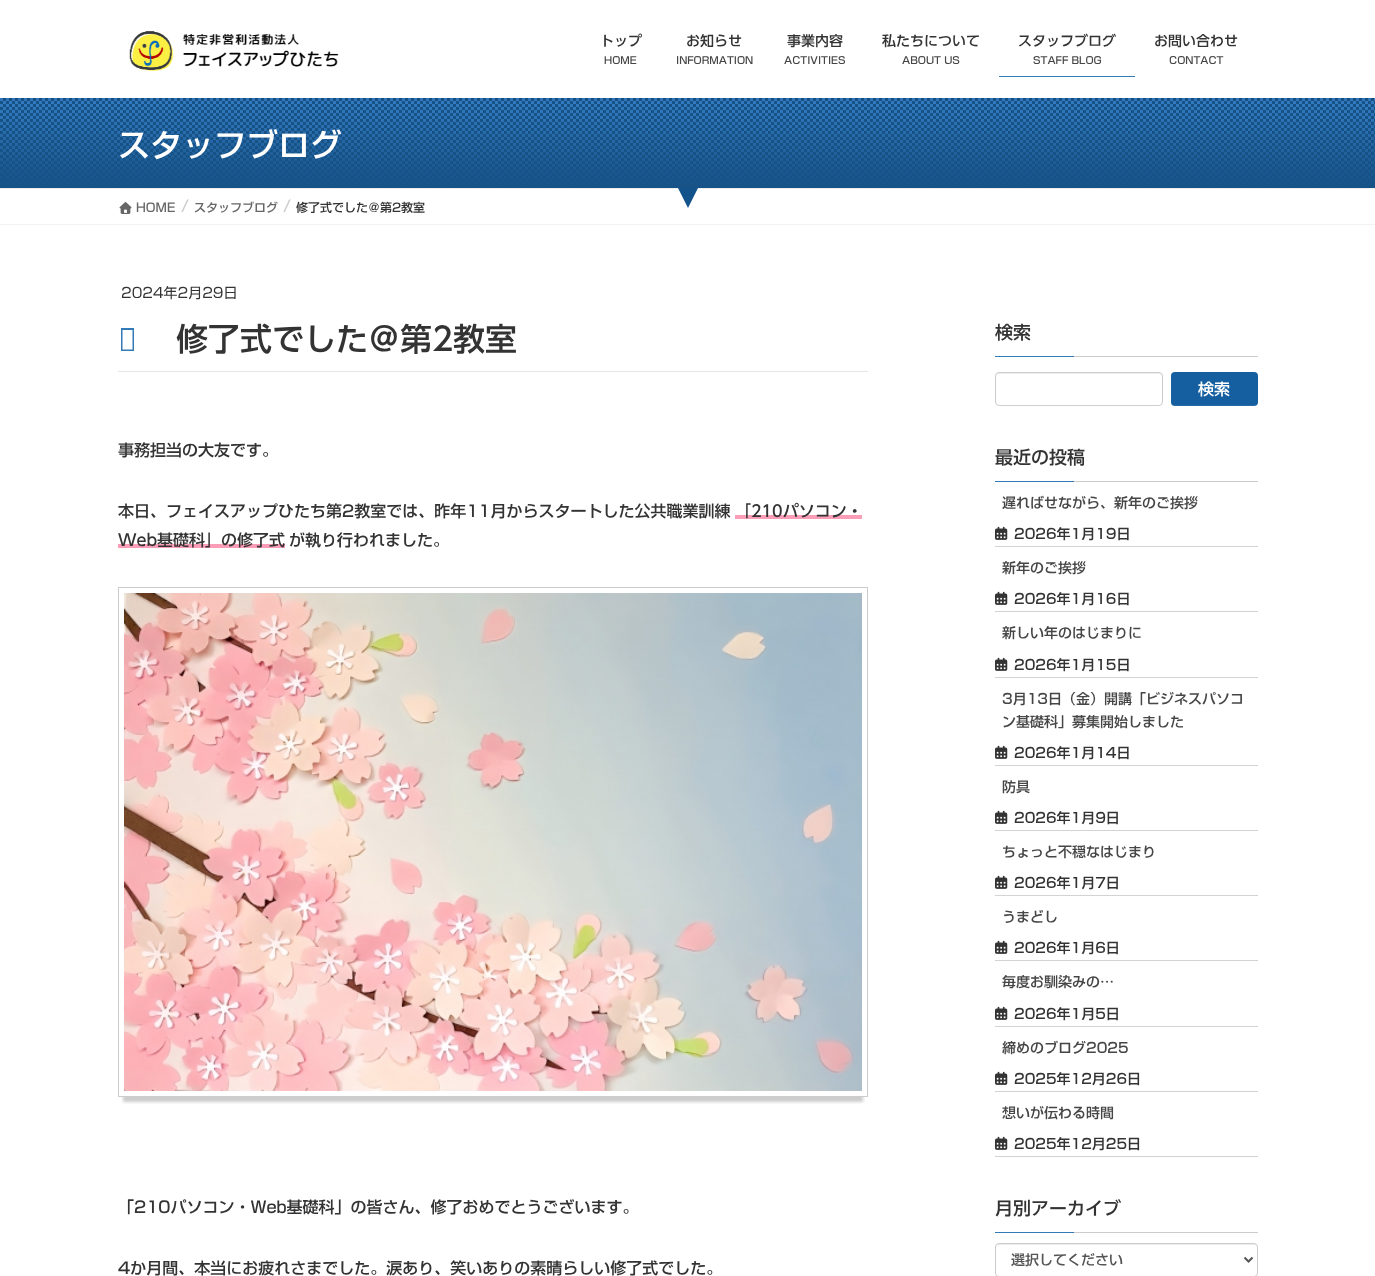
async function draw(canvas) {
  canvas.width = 1375;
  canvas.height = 1276;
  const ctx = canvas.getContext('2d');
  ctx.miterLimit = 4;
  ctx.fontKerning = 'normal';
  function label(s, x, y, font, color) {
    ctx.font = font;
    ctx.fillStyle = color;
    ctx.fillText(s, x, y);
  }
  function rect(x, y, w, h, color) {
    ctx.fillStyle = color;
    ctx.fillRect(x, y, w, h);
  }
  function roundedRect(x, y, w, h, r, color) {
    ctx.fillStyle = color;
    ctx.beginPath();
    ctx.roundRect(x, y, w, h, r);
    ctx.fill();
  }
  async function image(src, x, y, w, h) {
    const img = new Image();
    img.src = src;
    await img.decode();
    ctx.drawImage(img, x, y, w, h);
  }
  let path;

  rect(0, 0, 1375, 1276, '#fff');
  await image('assets/img2.png', 0, 98, 1375, 90);
  ctx.save();
  ctx.beginPath();
  ctx.rect(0, 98, 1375, 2);
  ctx.clip();
  ctx.fillStyle = '#0000001a';
  ctx.filter = 'blur(1.5px)';
  ctx.beginPath();
  ctx.rect(0, 1, 1375, 98);
  ctx.fill();
  ctx.filter = 'none';
  ctx.restore();
  await image('assets/img1.png', 129, 31, 210, 40);
  label('トップ', 600, 46, '500 14px "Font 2"', '#333');
  label('HOME', 604, 64, '500 10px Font', '#464646');
  label('お知らせ', 686, 46, '500 14px "Font 2"', '#333');
  label('INFORMATION', 676, 64, '500 10px Font', '#464646');
  label('事業内容', 787, 46, '500 14px "Font 2"', '#333');
  label('ACTIVITIES', 784, 64, '500 10px Font', '#464646');
  label('私たちについて', 882, 46, '500 14px "Font 2"', '#333');
  label('ABOUT US', 902, 64, '500 10px Font', '#464646');
  label('スタッフブログ', 1018, 46, '500 14px "Font 2"', '#333');
  label('STAFF BLOG', 1033, 64, '500 10px Font', '#464646');
  rect(999, 76, 136, 1, '#337ab7');
  label('お問い合わせ', 1154, 46, '500 14px "Font 2"', '#333');
  label('CONTACT', 1169, 64, '500 10px Font', '#464646');
  rect(0, 188, 1375, 1, '#eee');
  label('スタッフブログ', 118, 157, '500 32px Font', '#fff');
  ctx.fillStyle = '#12538c';
  path = new Path2D('M678 188H698L688 208Z');
  ctx.fill(path);
  rect(0, 224, 1375, 1, '#f3f3f3');
  await image('assets/img3.png', 119, 202, 13, 12);
  label('HOME', 136, 212, '500 12px Font', '#666');
  label('/', 181, 212, '500 16px Font', '#ccc');
  label('スタッフブログ', 194, 212, '500 12px Font', '#666');
  label('/', 283, 212, '500 16px Font', '#ccc');
  label('修了式でした＠第2教室', 296, 212, '500 12px Font', '#333');
  rect(118, 371, 750, 1, '#e5e5e5');
  label('2024年2月29日', 121, 298, '14px Font', '#333');
  ctx.fillStyle = '#337ab7';
  path = new Path2D('M121 351V328H134V351ZM122.5 349.5H132.5V330H122.5Z');
  ctx.fill(path);
  label('修了式でした＠第2教室', 176, 351, '500 32px "Font 2"', '#333');
  label('事務担当の大友です。', 118, 456, '500 16px Font', '#333');
  label('本日、フェイスアップひたち第2教室では、昨年11月からスタートした公共職業訓練', 118, 517, '500 16px Font', '#333');
  rect(735, 515, 127, 4, '#fc9db8');
  label('「210パソコン・', 735, 517, '500 16px "Font 2"', '#333');
  rect(118, 544, 167, 4, '#fc9db8');
  label('Web基礎科」の修了式', 118, 546, '500 16px "Font 2"', '#333');
  label('が執り行われました。', 289, 546, '500 16px Font', '#333');
  ctx.save();
  ctx.beginPath();
  ctx.rect(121, 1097, 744, 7);
  ctx.clip();
  ctx.fillStyle = '#00000033';
  ctx.filter = 'blur(1.5px)';
  ctx.beginPath();
  ctx.rect(123, 602, 740, 500);
  ctx.fill();
  ctx.filter = 'none';
  ctx.restore();
  ctx.strokeStyle = '#ccc';
  ctx.strokeRect(118.5, 587.5, 749, 509);
  await image('assets/img4.png', 124, 593, 738, 498);
  label('「210パソコン・Web基礎科」の皆さん、修了おめでとうございます。', 118, 1213, '500 16px Font', '#333');
  label('4か月間、本当にお疲れさまでした。涙あり、笑いありの素晴らしい修了式でした。', 118, 1274, '500 16px Font', '#333');
  rect(1074, 356, 184, 1, '#ccc');
  label('検索', 995, 339, '500 18px "Font 2"', '#333');
  rect(995, 356, 79, 1, '#337ab7');
  ctx.fillStyle = '#ececec';
  path = new Path2D('M999 374H1159C1161 374 1162 375 1162 377V376C1162 374 1161 373 1159 373H999C997 373 996 374 996 376V377C996 375 997 374 999 374Z');
  ctx.fill(path);
  ctx.beginPath();
  ctx.roundRect(995.5, 372.5, 167, 33, 3.5);
  ctx.stroke();
  roundedRect(1171, 372, 87, 34, 4, '#155fa1');
  label('検索', 1198, 395, '500 16px Font', '#fff');
  ctx.save();
  path = new Path2D('M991 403H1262V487H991ZM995 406H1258V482H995Z');
  ctx.clip(path, 'evenodd');
  ctx.fillStyle = '#ffffffe6';
  ctx.filter = 'blur(1px)';
  ctx.beginPath();
  ctx.rect(995, 407, 263, 76);
  ctx.fill();
  ctx.filter = 'none';
  ctx.restore();
  rect(1074, 481, 184, 1, '#ccc');
  label('最近の投稿', 995, 464, '500 18px "Font 2"', '#333');
  rect(995, 481, 79, 1, '#337ab7');
  rect(995, 546, 263, 1, '#d3d3d3');
  label('遅ればせながら、新年のご挨拶', 1002, 508, '500 14px Font', '#464646');
  await image('assets/img5.png', 995, 526, 13, 14);
  label('2026年1月19日', 1014, 539, '500 14px Font', '#333');
  rect(995, 611, 263, 1, '#d3d3d3');
  label('新年のご挨拶', 1002, 573, '500 14px Font', '#464646');
  await image('assets/img5.png', 995, 591, 13, 14);
  label('2026年1月16日', 1014, 604, '500 14px Font', '#333');
  rect(995, 677, 263, 1, '#d3d3d3');
  label('新しい年のはじまりに', 1002, 638, '500 14px Font', '#464646');
  await image('assets/img5.png', 995, 657, 13, 14);
  label('2026年1月15日', 1014, 670, '500 14px Font', '#333');
  rect(995, 765, 263, 1, '#d3d3d3');
  label('3月13日（金）開講「ビジネスパソコ', 1002, 704, '500 14px Font', '#464646');
  label('ン基礎科」募集開始しました', 1002, 727, '500 14px Font', '#464646');
  await image('assets/img5.png', 995, 745, 13, 14);
  label('2026年1月14日', 1014, 758, '500 14px Font', '#333');
  rect(995, 830, 263, 1, '#d3d3d3');
  label('防具', 1002, 792, '500 14px Font', '#464646');
  await image('assets/img5.png', 995, 810, 13, 14);
  label('2026年1月9日', 1014, 823, '500 14px Font', '#333');
  rect(995, 895, 263, 1, '#d3d3d3');
  label('ちょっと不穏なはじまり', 1002, 857, '500 14px Font', '#464646');
  await image('assets/img5.png', 995, 875, 13, 14);
  label('2026年1月7日', 1014, 888, '500 14px Font', '#333');
  rect(995, 960, 263, 1, '#d3d3d3');
  label('うまどし', 1002, 922, '500 14px Font', '#464646');
  await image('assets/img5.png', 995, 940, 13, 14);
  label('2026年1月6日', 1014, 953, '500 14px Font', '#333');
  rect(995, 1026, 263, 1, '#d3d3d3');
  label('毎度お馴染みの…', 1002, 987, '500 14px Font', '#464646');
  await image('assets/img5.png', 995, 1006, 13, 14);
  label('2026年1月5日', 1014, 1019, '500 14px Font', '#333');
  rect(995, 1091, 263, 1, '#d3d3d3');
  label('締めのブログ2025', 1002, 1053, '500 14px Font', '#464646');
  await image('assets/img5.png', 995, 1071, 13, 14);
  label('2025年12月26日', 1014, 1084, '500 14px Font', '#333');
  rect(995, 1156, 263, 1, '#d3d3d3');
  label('想いが伝わる時間', 1002, 1118, '500 14px Font', '#464646');
  await image('assets/img5.png', 995, 1136, 13, 14);
  label('2025年12月25日', 1014, 1149, '500 14px Font', '#333');
  rect(1074, 1232, 184, 1, '#ccc');
  label('月別アーカイブ', 995, 1215, '500 18px "Font 2"', '#333');
  rect(995, 1232, 79, 1, '#337ab7');
  ctx.fillStyle = '#ececec';
  path = new Path2D('M999 1245H1255L1257 1246V1248V1247C1257 1245 1256 1244 1254 1244H999C997 1244 996 1245 996 1247V1248C996 1246 997 1245 999 1245Z');
  ctx.fill(path);
  ctx.beginPath();
  ctx.roundRect(995.5, 1243.5, 262, 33, 3.5);
  ctx.stroke();
  path = new Path2D('M1244.5 1257.5L1248.5 1261.5L1252.5 1257.5');
  ctx.strokeStyle = '#555';
  ctx.lineWidth = 2;
  ctx.stroke(path);
  label('選択してください', 1011, 1265, '500 14px Font', '#555');
}

draw(document.querySelector('canvas'));
